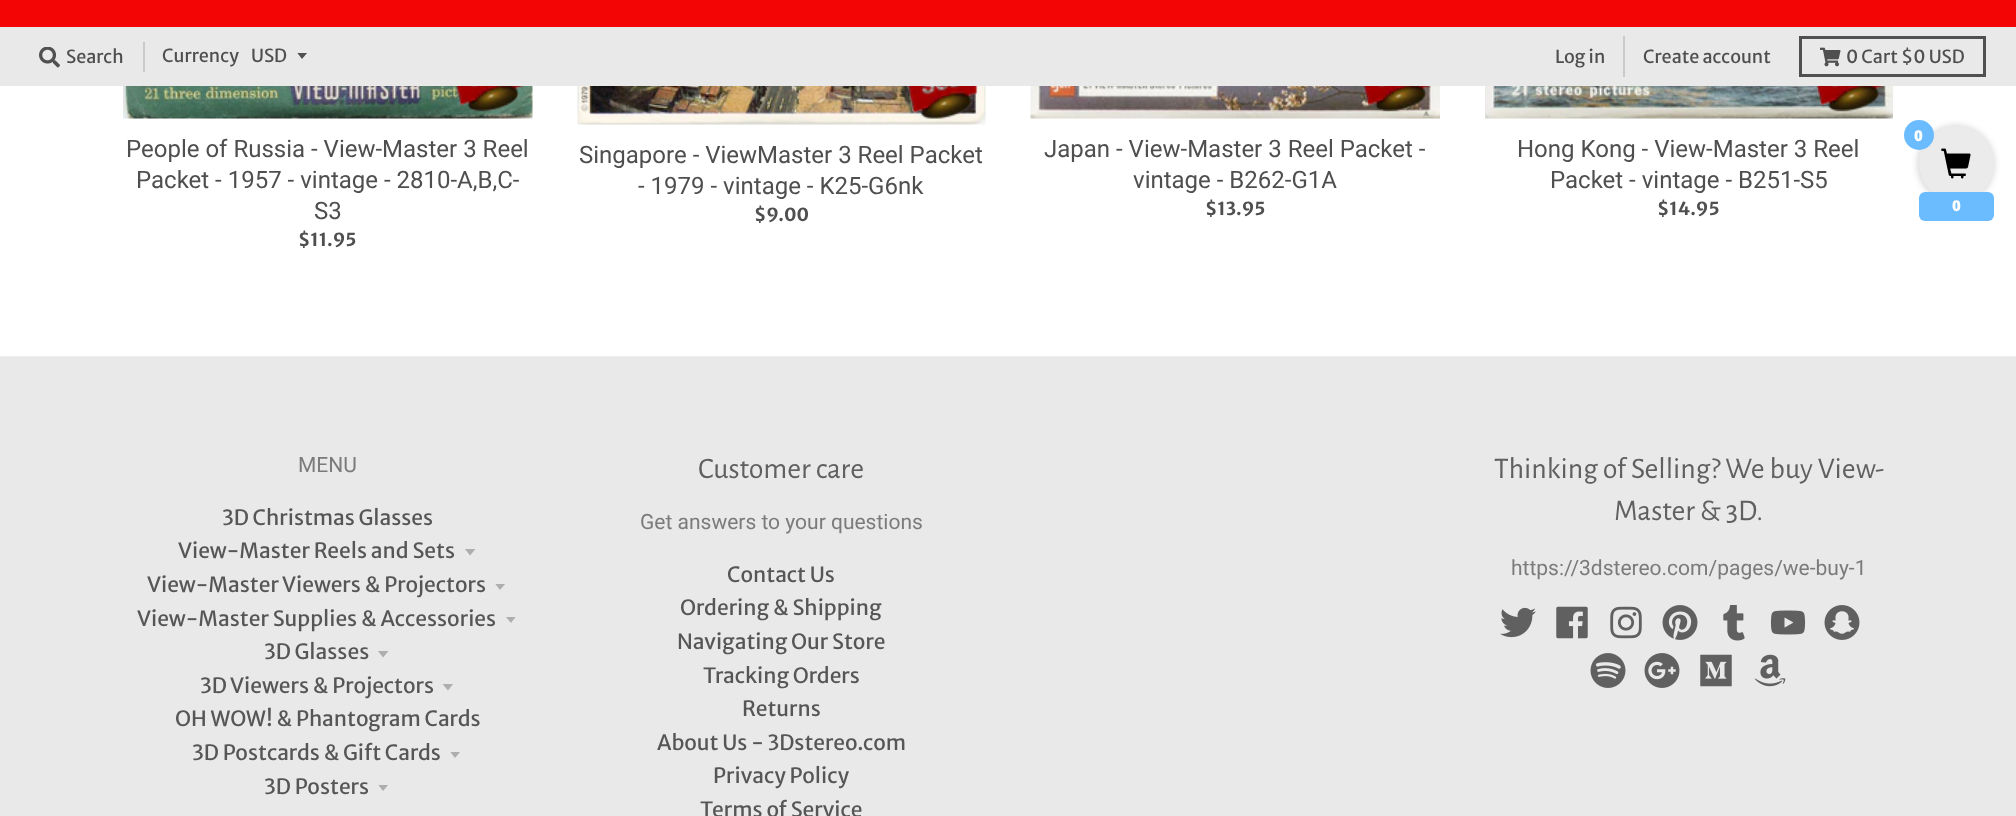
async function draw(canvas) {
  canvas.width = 2016;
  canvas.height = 816;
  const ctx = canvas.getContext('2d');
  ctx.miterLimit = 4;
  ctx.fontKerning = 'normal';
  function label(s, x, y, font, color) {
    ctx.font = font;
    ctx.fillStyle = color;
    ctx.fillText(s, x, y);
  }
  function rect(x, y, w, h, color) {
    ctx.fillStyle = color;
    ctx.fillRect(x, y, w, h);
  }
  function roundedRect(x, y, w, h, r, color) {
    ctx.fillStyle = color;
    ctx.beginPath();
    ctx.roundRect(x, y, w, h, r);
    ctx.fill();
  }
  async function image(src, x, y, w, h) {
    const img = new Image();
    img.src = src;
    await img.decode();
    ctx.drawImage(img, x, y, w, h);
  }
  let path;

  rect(0, 0, 2016, 816, '#fff');
  rect(0, 0, 2016, 27, '#f40505');
  rect(0, 27, 2016, 59, '#e9e9e9');
  await image('assets/img1.png', 39, 47, 21, 21);
  label('Search', 66, 63, '18px Merriweather Sans', '#4f4f4f');
  rect(143, 42, 2, 30, '#cacaca');
  label('Currency', 162, 62, '18px Merriweather Sans', '#4f4f4f');
  ctx.save();
  ctx.beginPath();
  ctx.rect(297, 53, 12, 7);
  ctx.clip();
  ctx.fillStyle = '#505050';
  path = new Path2D('M297 52.5L302 59L307.5 52.5Z');
  ctx.fill(path);
  ctx.restore();
  label('USD', 251, 62, '18px Merriweather Sans', '#4f4f4f');
  rect(1623, 36, 2, 41, '#cacaca');
  label('Log in', 1555, 63, '18px Merriweather Sans', '#4f4f4f');
  label('Create account', 1643, 63, '18px Merriweather Sans', '#4f4f4f');
  ctx.strokeStyle = '#505050';
  ctx.lineWidth = 3;
  ctx.strokeRect(1800.5, 37.5, 184, 38);
  await image('assets/img2.png', 1820, 47, 21, 20);
  label('0 Cart $0 USD', 1846, 63, '18px Merriweather Sans', '#4f4f4f');
  rect(0, 356, 2016, 1, '#ededed');
  await image('assets/img3.png', 123, 86, 410, 33);
  await image('assets/img4.png', 455, 86, 70, 26);
  label('People of Russia - View-Master 3 Reel', 126, 157, '24px Roboto', '#4f4f4f');
  label('Packet - 1957 - vintage - 2810-A,B,C-', 136, 188, '24px Roboto', '#4f4f4f');
  label('S3', 314, 219, '24px Roboto', '#4f4f4f');
  label('$11.95', 298, 246, 'bold 18px Merriweather Sans', '#4f4f4f');
  await image('assets/img5.png', 577, 86, 409, 39);
  await image('assets/img6.png', 907, 86, 71, 33);
  label('Singapore - ViewMaster 3 Reel Packet', 579, 163, '24px Roboto', '#4f4f4f');
  label('- 1979 - vintage - K25-G6nk', 638, 194, '24px Roboto', '#4f4f4f');
  label('$9.00', 754, 221, 'bold 18px Merriweather Sans', '#4f4f4f');
  await image('assets/img7.png', 1030, 86, 410, 33);
  await image('assets/img8.png', 1363, 86, 69, 26);
  label('Japan - View-Master 3 Reel Packet -', 1044, 157, '24px Roboto', '#4f4f4f');
  label('vintage - B262-G1A', 1133, 188, '24px Roboto', '#4f4f4f');
  label('$13.95', 1205, 215, 'bold 18px Merriweather Sans', '#4f4f4f');
  await image('assets/img9.png', 1485, 86, 408, 33);
  await image('assets/img10.png', 1816, 86, 69, 26);
  label('Hong Kong - View-Master 3 Reel', 1517, 157, '24px Roboto', '#4f4f4f');
  label('Packet - vintage - B251-S5', 1550, 188, '24px Roboto', '#4f4f4f');
  label('$14.95', 1657, 215, 'bold 18px Merriweather Sans', '#4f4f4f');
  rect(0, 357, 2016, 459, '#e9e9e9');
  label('MENU', 298, 472, '21px Roboto', '#7b7b7b');
  label('3D Christmas Glasses', 222, 525, '21px Merriweather Sans', '#565656');
  label('View-Master Reels and Sets', 178, 558, '21px Merriweather Sans', '#565656');
  ctx.fillStyle = '#aeaeae';
  path = new Path2D('M465 549L470 555.5L475.5 549Z');
  ctx.fill(path);
  label('View-Master Viewers & Projectors', 147, 592, '21px Merriweather Sans', '#565656');
  ctx.save();
  ctx.beginPath();
  ctx.rect(495, 584, 12, 7);
  ctx.clip();
  ctx.fillStyle = '#aeaeae';
  path = new Path2D('M495 583.5L500 590L505.5 583.5Z');
  ctx.fill(path);
  ctx.restore();
  label('View-Master Supplies & Accessories', 137, 626, '21px Merriweather Sans', '#565656');
  ctx.save();
  ctx.beginPath();
  ctx.rect(506, 617, 12, 7);
  ctx.clip();
  ctx.fillStyle = '#aeaeae';
  path = new Path2D('M505.5 616.5L511 623L516 616.5Z');
  ctx.fill(path);
  ctx.restore();
  label('3D Glasses', 264, 659, '21px Merriweather Sans', '#565656');
  ctx.fillStyle = '#aeaeae';
  path = new Path2D('M378 651L383 657.5L388.5 651Z');
  ctx.fill(path);
  label('3D Viewers & Projectors', 200, 693, '21px Merriweather Sans', '#565656');
  ctx.fillStyle = '#aeaeae';
  path = new Path2D('M442.5 684L448 690.5L453 684Z');
  ctx.fill(path);
  label('OH WOW! & Phantogram Cards', 175, 726, '21px Merriweather Sans', '#565656');
  label('3D Postcards & Gift Cards', 192, 760, '21px Merriweather Sans', '#565656');
  ctx.save();
  ctx.beginPath();
  ctx.rect(450, 752, 12, 7);
  ctx.clip();
  ctx.fillStyle = '#aeaeae';
  path = new Path2D('M450 751.5L455 758L460.5 751.5Z');
  ctx.fill(path);
  ctx.restore();
  label('3D Posters', 264, 794, '21px Merriweather Sans', '#565656');
  ctx.save();
  ctx.beginPath();
  ctx.rect(378, 785, 12, 7);
  ctx.clip();
  ctx.fillStyle = '#aeaeae';
  path = new Path2D('M378 784.5L383 791L388.5 784.5Z');
  ctx.fill(path);
  ctx.restore();
  label('Customer care', 698, 478, '30px Alegreya Sans', '#606060');
  label('Get answers to your questions', 640, 529, '21px Roboto', '#7b7b7b');
  label('Contact Us', 727, 582, '21px Merriweather Sans', '#565656');
  label('Ordering & Shipping', 680, 615, '21px Merriweather Sans', '#565656');
  label('Navigating Our Store', 677, 649, '21px Merriweather Sans', '#565656');
  label('Tracking Orders', 703, 683, '21px Merriweather Sans', '#565656');
  label('Returns', 742, 716, '21px Merriweather Sans', '#565656');
  label('About Us - 3Dstereo.com', 657, 750, '21px Merriweather Sans', '#565656');
  label('Privacy Policy', 713, 783, '21px Merriweather Sans', '#565656');
  label('Terms of Service', 700, 817, '21px Merriweather Sans', '#565656');
  label('Thinking of Selling? We buy View-', 1494, 478, '30px Alegreya Sans', '#606060');
  label('Master & 3D.', 1614, 520, '30px Alegreya Sans', '#606060');
  label('https://3dstereo.com/pages/we-buy-1', 1511, 575, '21px Roboto', '#7b7b7b');
  await image('assets/img11.png', 1500, 607, 36, 31);
  await image('assets/img12.png', 1556, 606, 32, 33);
  await image('assets/img13.png', 1610, 606, 32, 33);
  await image('assets/img14.png', 1662, 605, 36, 35);
  await image('assets/img15.png', 1723, 605, 22, 36);
  await image('assets/img16.png', 1770, 610, 36, 25);
  await image('assets/img17.png', 1824, 605, 36, 35);
  await image('assets/img18.png', 1590, 653, 36, 35);
  await image('assets/img19.png', 1644, 653, 36, 35);
  await image('assets/img20.png', 1700, 654, 32, 33);
  await image('assets/img21.png', 1754, 654, 32, 33);
  ctx.fillStyle = '#03030326';
  ctx.filter = 'blur(3px)';
  ctx.beginPath();
  ctx.roundRect(1917, 125, 78, 78, 39);
  ctx.fill();
  ctx.filter = 'none';
  ctx.fillStyle = '#ebebeb';
  ctx.beginPath();
  ctx.arc(1956.5, 163.5, 37.5, 0, 2 * Math.PI);
  ctx.fill();
  ctx.fillStyle = '#6bbbff';
  ctx.beginPath();
  ctx.arc(1919, 135, 15, 0, 2 * Math.PI);
  ctx.fill();
  label('0', 1914, 141, '800 15px Open Sans', '#fff');
  await image('assets/img22.png', 1941, 148, 30, 31);
  roundedRect(1919, 192, 75, 29, 6, '#6bbbff');
  label('0', 1952, 211, '800 15px Open Sans', '#fff');
}

draw(document.querySelector('canvas'));
